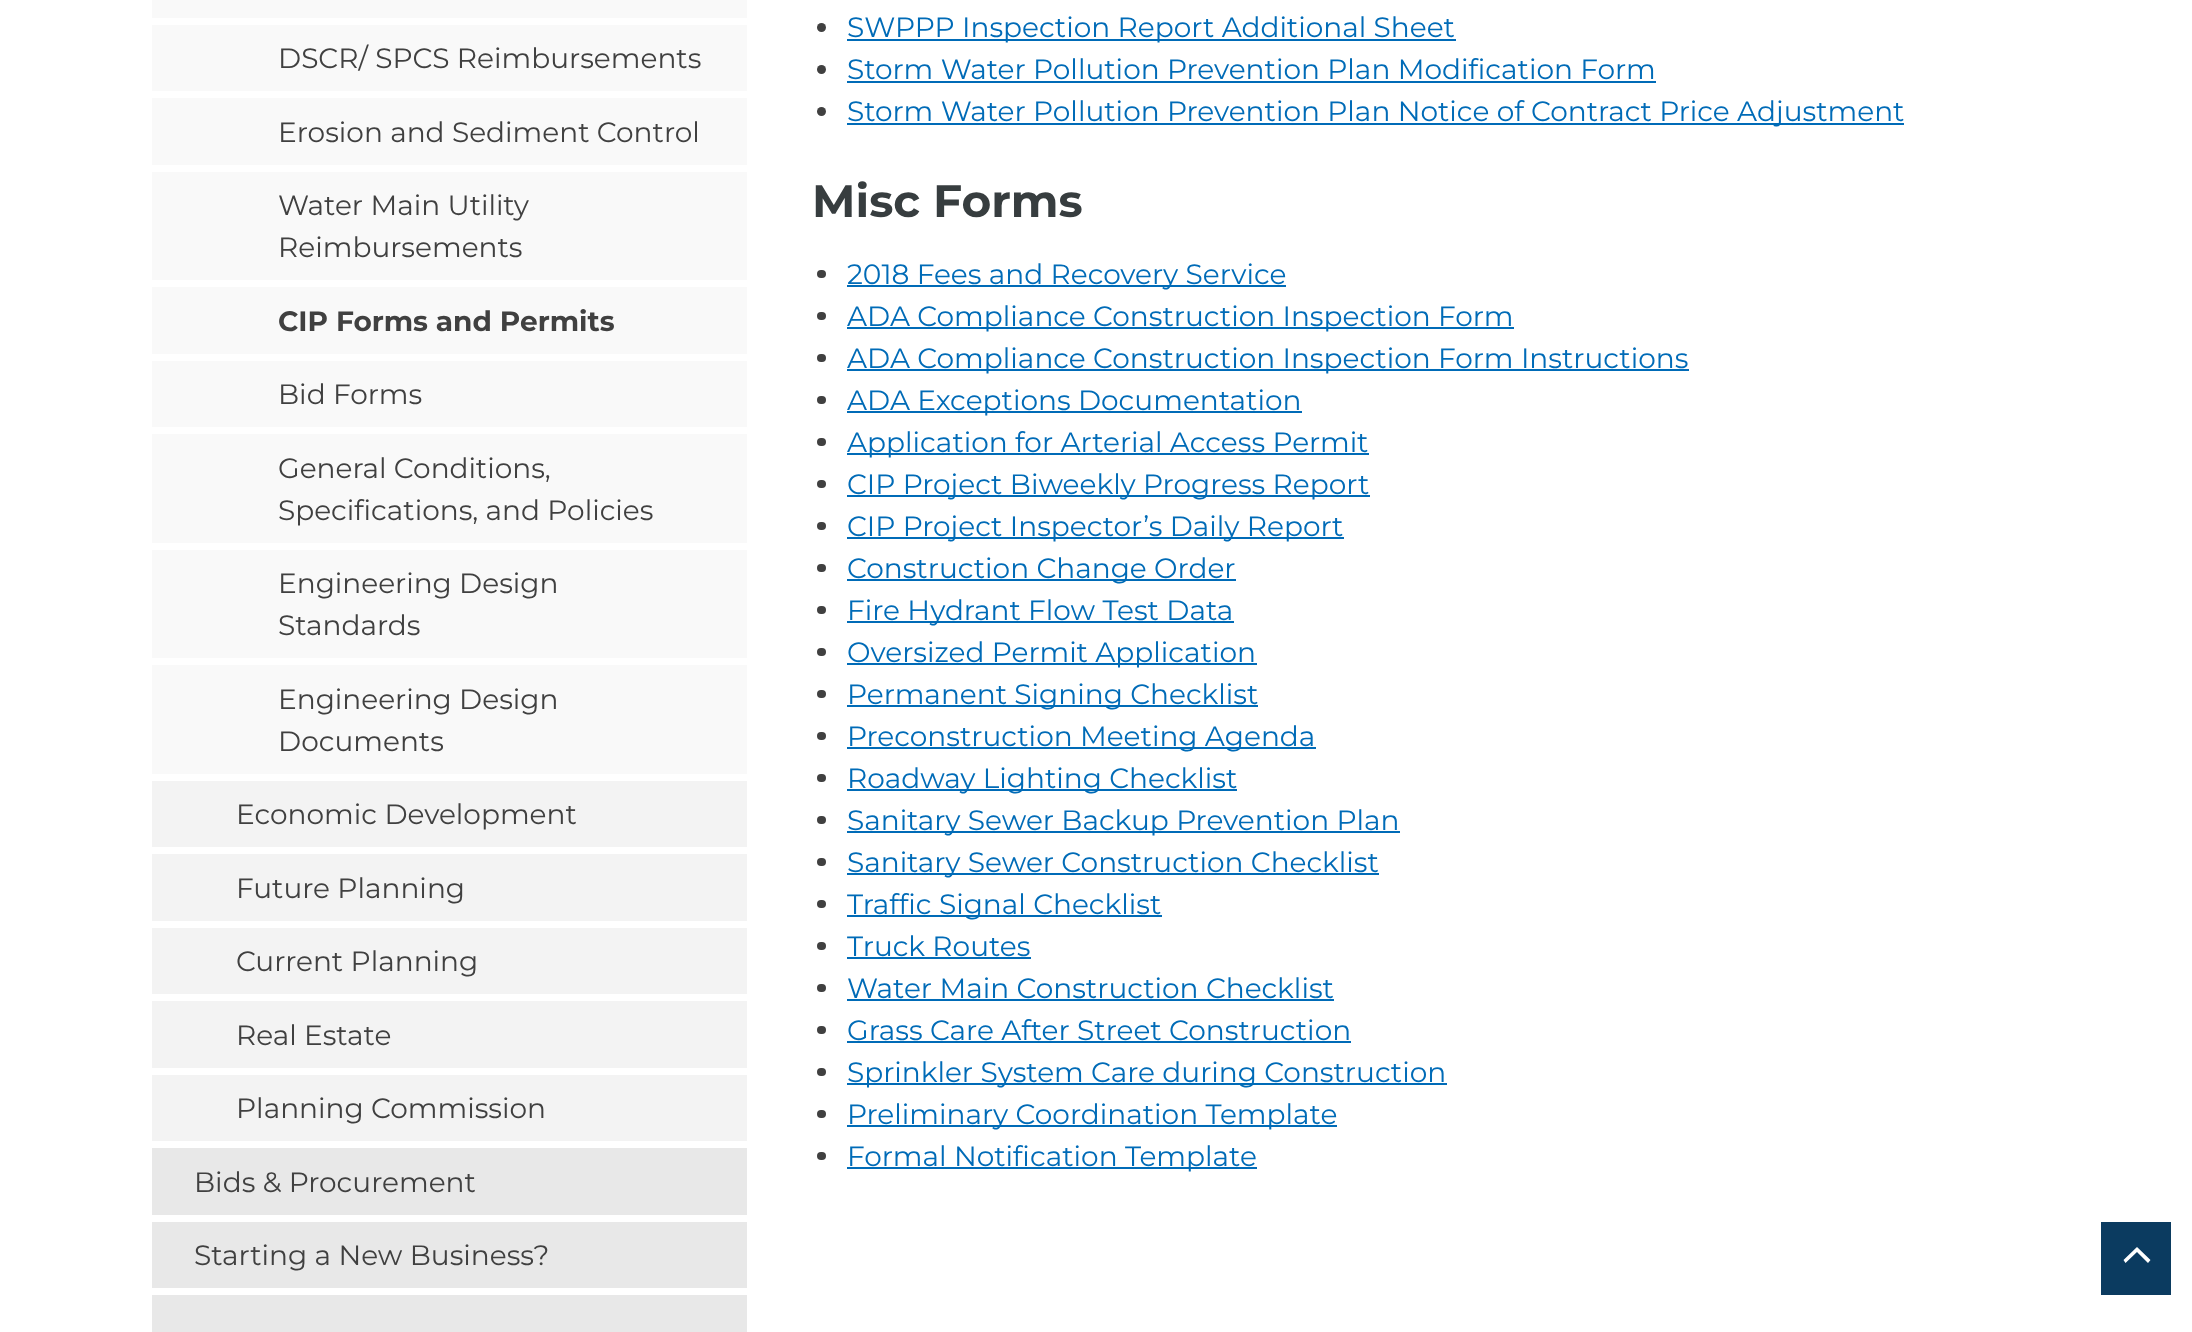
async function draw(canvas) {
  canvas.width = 2192;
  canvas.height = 1332;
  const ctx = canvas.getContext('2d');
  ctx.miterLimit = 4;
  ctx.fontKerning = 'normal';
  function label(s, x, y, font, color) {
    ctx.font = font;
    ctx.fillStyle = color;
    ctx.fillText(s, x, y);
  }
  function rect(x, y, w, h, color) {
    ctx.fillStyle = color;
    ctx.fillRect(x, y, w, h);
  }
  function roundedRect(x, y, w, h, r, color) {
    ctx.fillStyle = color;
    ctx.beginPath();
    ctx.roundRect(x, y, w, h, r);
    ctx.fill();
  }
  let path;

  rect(0, 0, 2192, 1332, '#fff');
  rect(152, 0, 595, 18, '#f9f9f9');
  rect(152, 25, 595, 66, '#f9f9f9');
  label('DSCR/ SPCS Reimbursements', 278, 68, '28px Montserrat', '#404040');
  rect(152, 98, 595, 67, '#f9f9f9');
  label('Erosion and Sediment Control', 278, 142, '28px Montserrat', '#404040');
  rect(152, 172, 595, 108, '#f9f9f9');
  label('Water Main Utility', 278, 215, '28px Montserrat', '#404040');
  label('Reimbursements', 278, 257, '28px Montserrat', '#404040');
  rect(152, 287, 595, 67, '#f9f9f9');
  label('CIP Forms and Permits', 278, 331, 'bold 28px Montserrat', '#404040');
  rect(152, 361, 595, 66, '#f9f9f9');
  label('Bid Forms', 278, 404, '28px Montserrat', '#404040');
  rect(152, 434, 595, 109, '#f9f9f9');
  label('General Conditions,', 278, 478, '28px Montserrat', '#404040');
  label('Specifications, and Policies', 278, 520, '28px Montserrat', '#404040');
  rect(152, 550, 595, 108, '#f9f9f9');
  label('Engineering Design', 278, 593, '28px Montserrat', '#404040');
  label('Standards', 278, 635, '28px Montserrat', '#404040');
  rect(152, 665, 595, 109, '#f9f9f9');
  label('Engineering Design', 278, 709, '28px Montserrat', '#404040');
  label('Documents', 278, 751, '28px Montserrat', '#404040');
  rect(152, 781, 595, 66, '#f3f3f3');
  label('Economic Development', 236, 824, '28px Montserrat', '#404040');
  rect(152, 854, 595, 67, '#f3f3f3');
  label('Future Planning', 236, 898, '28px Montserrat', '#404040');
  rect(152, 928, 595, 66, '#f3f3f3');
  label('Current Planning', 236, 971, '28px Montserrat', '#404040');
  rect(152, 1001, 595, 67, '#f3f3f3');
  label('Real Estate', 236, 1045, '28px Montserrat', '#404040');
  rect(152, 1075, 595, 66, '#f3f3f3');
  label('Planning Commission', 236, 1118, '28px Montserrat', '#404040');
  rect(152, 1148, 595, 67, '#e8e8e8');
  label('Bids & Procurement', 194, 1192, '28px Montserrat', '#404040');
  rect(152, 1222, 595, 66, '#e8e8e8');
  label('Starting a New Business?', 194, 1265, '28px Montserrat', '#404040');
  rect(152, 1295, 595, 37, '#e8e8e8');
  ctx.fillStyle = '#404040';
  ctx.beginPath();
  ctx.arc(821.5, 27.5, 4.5, 0, 2 * Math.PI);
  ctx.fill();
  rect(847, 39, 609, 2, '#006bb7');
  label('SWPPP Inspection Report Additional Sheet', 847, 37, '28px Montserrat', '#006bb7');
  ctx.fillStyle = '#404040';
  ctx.beginPath();
  ctx.arc(821.5, 69.5, 4.5, 0, 2 * Math.PI);
  ctx.fill();
  label('Storm Water Pollution Prevention Plan Modification Form', 847, 79, '28px Montserrat', '#006bb7');
  rect(847, 81, 809, 2, '#006bb7');
  ctx.fillStyle = '#404040';
  ctx.beginPath();
  ctx.arc(821.5, 111.5, 4.5, 0, 2 * Math.PI);
  ctx.fill();
  rect(847, 123, 1057, 2, '#006bb7');
  label('Storm Water Pollution Prevention Plan Notice of Contract Price Adjustment', 847, 121, '28px Montserrat', '#006bb7');
  label('Misc Forms', 812, 217, 'bold 45.5px Montserrat', '#373d3f');
  roundedRect(817, 270, 9, 8, 4, '#404040');
  rect(847, 285, 439, 2, '#006bb7');
  label('2018 Fees and Recovery Service', 847, 284, '28px Montserrat', '#006bb7');
  roundedRect(817, 312, 9, 8, 4, '#404040');
  rect(847, 327, 667, 2, '#006bb7');
  label('ADA Compliance Construction Inspection Form', 847, 326, '28px Montserrat', '#006bb7');
  roundedRect(817, 354, 9, 8, 4, '#404040');
  rect(847, 369, 842, 2, '#006bb7');
  label('ADA Compliance Construction Inspection Form Instructions', 847, 368, '28px Montserrat', '#006bb7');
  roundedRect(817, 396, 9, 8, 4, '#404040');
  rect(847, 411, 455, 2, '#006bb7');
  label('ADA Exceptions Documentation', 847, 410, '28px Montserrat', '#006bb7');
  roundedRect(817, 438, 9, 8, 4, '#404040');
  rect(847, 453, 522, 2, '#006bb7');
  label('Application for Arterial Access Permit', 847, 452, '28px Montserrat', '#006bb7');
  roundedRect(817, 480, 9, 8, 4, '#404040');
  rect(847, 495, 523, 2, '#006bb7');
  label('CIP Project Biweekly Progress Report', 847, 494, '28px Montserrat', '#006bb7');
  roundedRect(817, 522, 9, 8, 4, '#404040');
  rect(847, 537, 497, 2, '#006bb7');
  label('CIP Project Inspector’s Daily Report', 847, 536, '28px Montserrat', '#006bb7');
  roundedRect(817, 564, 9, 8, 4, '#404040');
  rect(847, 579, 389, 2, '#006bb7');
  label('Construction Change Order', 847, 578, '28px Montserrat', '#006bb7');
  roundedRect(817, 606, 9, 8, 4, '#404040');
  rect(847, 621, 387, 2, '#006bb7');
  label('Fire Hydrant Flow Test Data', 847, 620, '28px Montserrat', '#006bb7');
  roundedRect(817, 648, 9, 8, 4, '#404040');
  rect(847, 663, 410, 2, '#006bb7');
  label('Oversized Permit Application', 847, 662, '28px Montserrat', '#006bb7');
  roundedRect(817, 690, 9, 8, 4, '#404040');
  rect(847, 705, 411, 2, '#006bb7');
  label('Permanent Signing Checklist', 847, 704, '28px Montserrat', '#006bb7');
  roundedRect(817, 732, 9, 8, 4, '#404040');
  rect(847, 747, 469, 2, '#006bb7');
  label('Preconstruction Meeting Agenda', 847, 746, '28px Montserrat', '#006bb7');
  roundedRect(817, 774, 9, 8, 4, '#404040');
  rect(847, 789, 390, 2, '#006bb7');
  label('Roadway Lighting Checklist', 847, 788, '28px Montserrat', '#006bb7');
  roundedRect(817, 816, 9, 8, 4, '#404040');
  rect(847, 831, 553, 2, '#006bb7');
  label('Sanitary Sewer Backup Prevention Plan', 847, 830, '28px Montserrat', '#006bb7');
  roundedRect(817, 858, 9, 8, 4, '#404040');
  rect(847, 873, 532, 2, '#006bb7');
  label('Sanitary Sewer Construction Checklist', 847, 872, '28px Montserrat', '#006bb7');
  roundedRect(817, 900, 9, 8, 4, '#404040');
  rect(847, 915, 315, 2, '#006bb7');
  label('Traffic Signal Checklist', 847, 914, '28px Montserrat', '#006bb7');
  roundedRect(817, 942, 9, 8, 4, '#404040');
  label('Truck Routes', 847, 956, '28px Montserrat', '#006bb7');
  rect(847, 957, 184, 2, '#006bb7');
  roundedRect(817, 984, 9, 8, 4, '#404040');
  label('Water Main Construction Checklist', 847, 998, '28px Montserrat', '#006bb7');
  rect(847, 999, 487, 2, '#006bb7');
  roundedRect(817, 1026, 9, 8, 4, '#404040');
  label('Grass Care After Street Construction', 847, 1040, '28px Montserrat', '#006bb7');
  rect(847, 1041, 504, 2, '#006bb7');
  roundedRect(817, 1068, 9, 8, 4, '#404040');
  rect(847, 1083, 600, 2, '#006bb7');
  label('Sprinkler System Care during Construction', 847, 1082, '28px Montserrat', '#006bb7');
  roundedRect(817, 1110, 9, 8, 4, '#404040');
  rect(847, 1125, 490, 2, '#006bb7');
  label('Preliminary Coordination Template', 847, 1124, '28px Montserrat', '#006bb7');
  roundedRect(817, 1152, 9, 8, 4, '#404040');
  rect(847, 1167, 410, 2, '#006bb7');
  label('Formal Notification Template', 847, 1166, '28px Montserrat', '#006bb7');
  rect(2101, 1222, 70, 73, '#0b3b60');
  ctx.fillStyle = '#fff';
  path = new Path2D('M2148 1263L2137 1252L2125.5 1263L2123.5 1260L2137 1247L2150.5 1260Z');
  ctx.fill(path);
}

draw(document.querySelector('canvas'));
